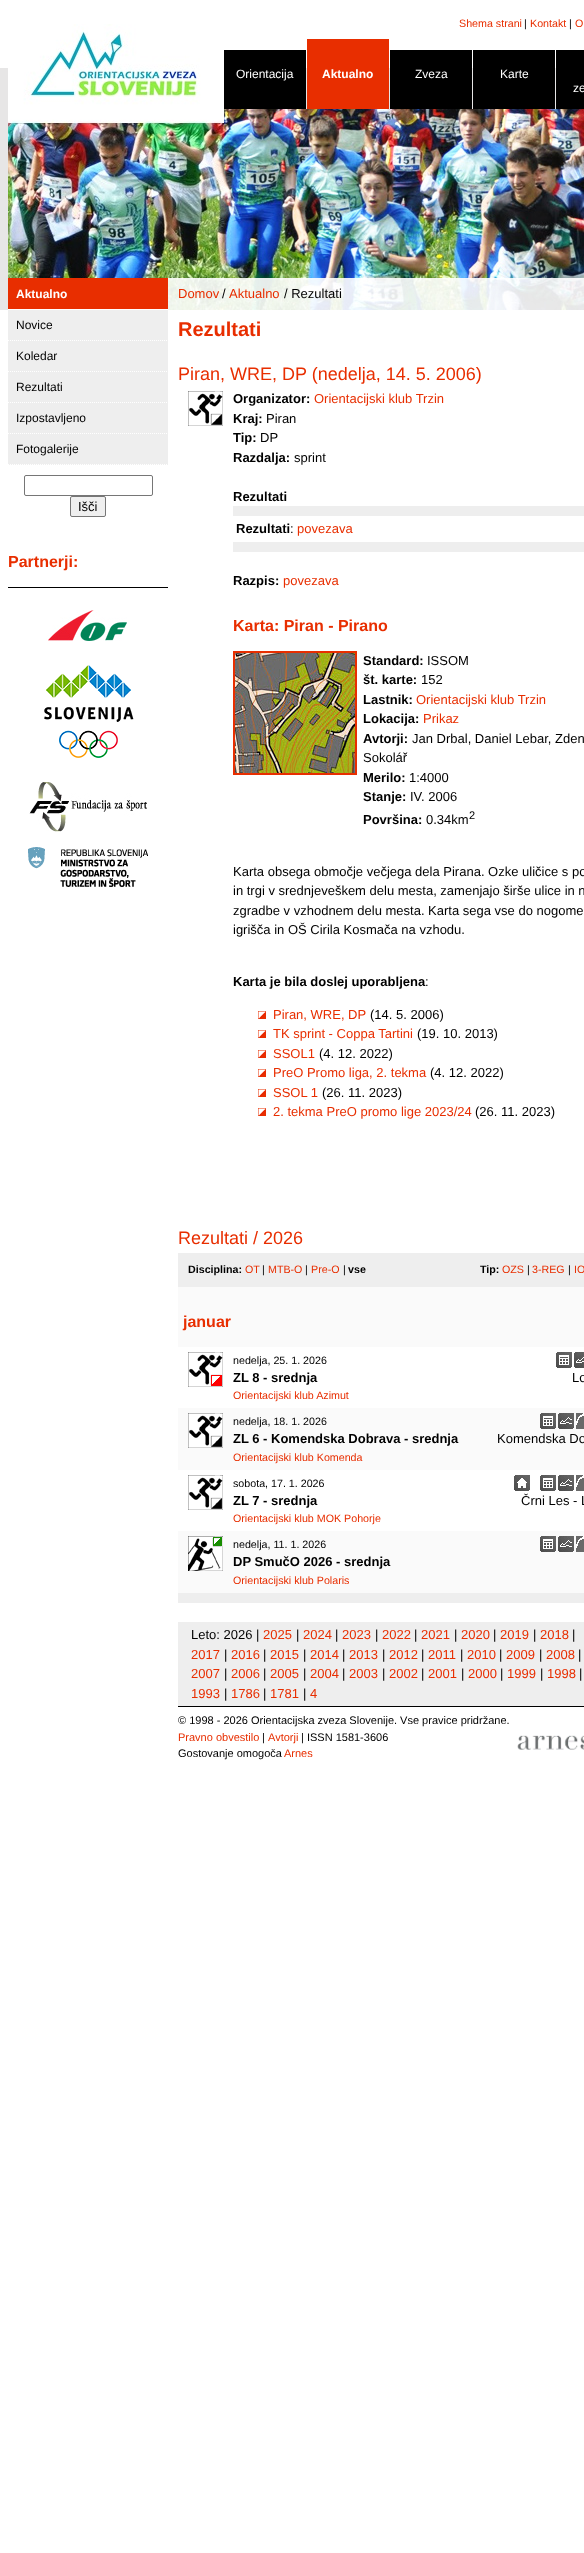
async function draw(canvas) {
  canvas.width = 584;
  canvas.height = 2553;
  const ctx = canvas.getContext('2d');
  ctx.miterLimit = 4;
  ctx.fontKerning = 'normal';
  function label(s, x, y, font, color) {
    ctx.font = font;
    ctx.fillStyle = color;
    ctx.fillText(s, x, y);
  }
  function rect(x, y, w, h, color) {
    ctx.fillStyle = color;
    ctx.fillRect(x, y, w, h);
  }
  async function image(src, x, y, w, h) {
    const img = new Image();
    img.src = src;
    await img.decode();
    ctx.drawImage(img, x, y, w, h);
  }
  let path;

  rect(0, 0, 584, 2553, '#fff');
  rect(0, 68, 556, 242, '#e7e6e6');
  await image('assets/img1.png', 8, 24, 216, 254);
  label('Shema strani', 459, 27, '10.7px Liberation Sans', '#e82e00');
  label('|', 524, 27, '10.7px Liberation Sans', '#000');
  label('Kontakt', 530, 27, '10.7px Liberation Sans', '#e82e00');
  label('|', 569, 27, '10.7px Liberation Sans', '#000');
  label('O', 575, 27, '10.7px Liberation Sans', '#e82e00');
  rect(224, 50, 82, 59, '#000');
  label('Orientacija', 236, 78, '12px Liberation Sans', '#fff');
  rect(307, 39, 82, 70, '#e82e00');
  label('Aktualno', 322, 78, 'bold 12px Liberation Sans', '#fff');
  rect(390, 50, 82, 59, '#000');
  label('Zveza', 415, 78, '12px Liberation Sans', '#fff');
  rect(473, 50, 82, 59, '#000');
  label('Karte', 500, 78, '12px Liberation Sans', '#fff');
  rect(556, 50, 28, 59, '#000');
  label('ze', 573, 92, '12px Liberation Sans', '#fff');
  await image('assets/img2.png', 224, 109, 360, 169);
  rect(8, 278, 160, 31, '#e82e00');
  rect(8, 309, 160, 1, '#fff');
  label('Aktualno', 16, 298, 'bold 12px Liberation Sans', '#fff');
  rect(8, 310, 160, 155, '#eee');
  path = new Path2D('M8 340.5H168');
  ctx.strokeStyle = '#fff';
  ctx.setLineDash([1, 1]);
  ctx.stroke(path);
  label('Novice', 16, 329, '12px Liberation Sans', '#000');
  path = new Path2D('M8 371.5H168');
  ctx.stroke(path);
  label('Koledar', 16, 360, '12px Liberation Sans', '#000');
  path = new Path2D('M8 402.5H168');
  ctx.stroke(path);
  label('Rezultati', 16, 391, '12px Liberation Sans', '#000');
  path = new Path2D('M8 433.5H168');
  ctx.stroke(path);
  label('Izpostavljeno', 16, 422, '12px Liberation Sans', '#000');
  path = new Path2D('M8 464.5H168');
  ctx.stroke(path);
  label('Fotogalerije', 16, 453, '12px Liberation Sans', '#000');
  ctx.beginPath();
  ctx.roundRect(24.5, 475.5, 128, 20, 1.5);
  ctx.strokeStyle = '#767676';
  ctx.setLineDash([]);
  ctx.stroke();
  ctx.fillStyle = '#efefef';
  ctx.beginPath();
  ctx.roundRect(70.5, 496.5, 35, 20, 1.5);
  ctx.fill();
  ctx.stroke();
  label('Išči', 78, 511, '13px Liberation Sans', '#000');
  label('Partnerji:', 8, 567, 'bold 16px Liberation Sans', '#e82e00');
  rect(8, 587, 160, 1, '#000');
  await image('assets/img3.png', 46, 610, 81, 31);
  await image('assets/img4.png', 44, 665, 90, 93);
  await image('assets/img5.png', 29, 782, 118, 50);
  await image('assets/img6.png', 28, 847, 120, 40);
  await image('assets/img7.png', 168, 278, 416, 32);
  label('Domov', 178, 298, '13px Liberation Sans', '#e82e00');
  label('/', 222, 298, '13px Liberation Sans', '#000');
  label('Aktualno', 229, 298, '13px Liberation Sans', '#e82e00');
  label('/ Rezultati', 284, 298, '13px Liberation Sans', '#000');
  label('Rezultati', 178, 336, 'bold 20px Liberation Sans', '#e82e00');
  label('Piran, WRE, DP (nedelja, 14. 5. 2006)', 178, 380, '18px Liberation Sans', '#e82e00');
  await image('assets/img8.png', 188, 391, 35, 35);
  label('Organizator:', 233, 403, 'bold 13px Liberation Sans', '#000');
  label('Orientacijski klub Trzin', 314, 403, '13px Liberation Sans', '#e82e00');
  label('Kraj:', 233, 423, 'bold 13px Liberation Sans', '#000');
  label('Piran', 266, 423, '13px Liberation Sans', '#000');
  label('Tip:', 233, 442, 'bold 13px Liberation Sans', '#000');
  label('DP', 260, 442, '13px Liberation Sans', '#000');
  label('Razdalja:', 233, 462, 'bold 13px Liberation Sans', '#000');
  label('sprint', 294, 462, '13px Liberation Sans', '#000');
  label('Rezultati', 233, 501, 'bold 13px Liberation Sans', '#000');
  rect(233, 506, 351, 10, '#eee');
  rect(233, 542, 351, 10, '#eee');
  label('Rezultati', 236, 533, 'bold 13px Liberation Sans', '#000');
  label(':', 290, 533, '13px Liberation Sans', '#000');
  label('povezava', 297, 533, '13px Liberation Sans', '#e82e00');
  label('Razpis:', 233, 585, 'bold 13px Liberation Sans', '#000');
  label('povezava', 283, 585, '13px Liberation Sans', '#e82e00');
  label('Karta: Piran - Pirano', 233, 631, 'bold 16px Liberation Sans', '#e82e00');
  ctx.strokeStyle = '#e82e00';
  ctx.lineWidth = 2;
  ctx.strokeRect(234, 652, 122, 122);
  await image('assets/img9.png', 235, 653, 120, 120);
  label('Standard:', 363, 665, 'bold 13px Liberation Sans', '#000');
  label('ISSOM', 427, 665, '13px Liberation Sans', '#000');
  label('št. karte:', 363, 684, 'bold 13px Liberation Sans', '#000');
  label('152', 421, 684, '13px Liberation Sans', '#000');
  label('Lastnik:', 363, 704, 'bold 13px Liberation Sans', '#000');
  label('Orientacijski klub Trzin', 416, 704, '13px Liberation Sans', '#e82e00');
  label('Lokacija:', 363, 723, 'bold 13px Liberation Sans', '#000');
  label('Prikaz', 423, 723, '13px Liberation Sans', '#e82e00');
  label('Avtorji:', 363, 743, 'bold 13px Liberation Sans', '#000');
  label('Jan Drbal, Daniel Lebar, Zden', 412, 743, '13px Liberation Sans', '#000');
  label('Sokolář', 363, 762, '13px Liberation Sans', '#000');
  label('Merilo:', 363, 782, 'bold 13px Liberation Sans', '#000');
  label('1:4000', 409, 782, '13px Liberation Sans', '#000');
  label('Stanje:', 363, 801, 'bold 13px Liberation Sans', '#000');
  label('IV. 2006', 410, 801, '13px Liberation Sans', '#000');
  label('Površina:', 363, 824, 'bold 13px Liberation Sans', '#000');
  label('0.34km', 426, 824, '13px Liberation Sans', '#000');
  label('2', 469, 819, '11px Liberation Sans', '#000');
  label('Karta obsega območje večjega dela Pirana. Ozke uličice s po', 233, 876, '13px Liberation Sans', '#000');
  label('in trgi v srednjeveškem delu mesta, zamenjajo širše ulice in n', 233, 895, '13px Liberation Sans', '#000');
  label('zgradbe v vzhodnem delu mesta. Karta sega vse do nogome', 233, 915, '13px Liberation Sans', '#000');
  label('igrišča in OŠ Cirila Kosmača na vzhodu.', 233, 934, '13px Liberation Sans', '#000');
  label('Karta je bila doslej uporabljena', 233, 986, 'bold 13px Liberation Sans', '#000');
  label(':', 425, 986, '13px Liberation Sans', '#000');
  await image('assets/img10.png', 258, 1011, 8, 8);
  label('Piran, WRE, DP', 273, 1019, '13px Liberation Sans', '#e82e00');
  label('(14. 5. 2006)', 370, 1019, '13px Liberation Sans', '#000');
  await image('assets/img10.png', 258, 1030, 8, 8);
  label('TK sprint - Coppa Tartini', 273, 1038, '13px Liberation Sans', '#e82e00');
  label('(19. 10. 2013)', 417, 1038, '13px Liberation Sans', '#000');
  await image('assets/img10.png', 258, 1050, 8, 8);
  label('SSOL1', 273, 1058, '13px Liberation Sans', '#e82e00');
  label('(4. 12. 2022)', 319, 1058, '13px Liberation Sans', '#000');
  await image('assets/img10.png', 258, 1069, 8, 8);
  label('PreO Promo liga, 2. tekma', 273, 1077, '13px Liberation Sans', '#e82e00');
  label('(4. 12. 2022)', 430, 1077, '13px Liberation Sans', '#000');
  await image('assets/img10.png', 258, 1089, 8, 8);
  label('SSOL 1', 273, 1097, '13px Liberation Sans', '#e82e00');
  label('(26. 11. 2023)', 322, 1097, '13px Liberation Sans', '#000');
  await image('assets/img10.png', 258, 1108, 8, 8);
  label('2. tekma PreO promo lige 2023/24', 273, 1116, '13px Liberation Sans', '#e82e00');
  label('(26. 11. 2023)', 475, 1116, '13px Liberation Sans', '#000');
  label('Rezultati / 2026', 178, 1244, '18px Liberation Sans', '#e82e00');
  rect(178, 1253, 406, 34, '#eee');
  label('Disciplina:', 188, 1273, 'bold 10.7px Liberation Sans', '#000');
  label('OT', 245, 1273, '10.7px Liberation Sans', '#e82e00');
  label('|', 262, 1273, '10.7px Liberation Sans', '#000');
  label('MTB-O', 268, 1273, '10.7px Liberation Sans', '#e82e00');
  label('|', 305, 1273, '10.7px Liberation Sans', '#000');
  label('Pre-O', 311, 1273, '10.7px Liberation Sans', '#e82e00');
  label('|', 343, 1273, '10.7px Liberation Sans', '#000');
  label('vse', 348, 1273, 'bold 10.7px Liberation Sans', '#000');
  label('Tip:', 480, 1273, 'bold 10.7px Liberation Sans', '#000');
  label('OZS', 502, 1273, '10.7px Liberation Sans', '#e82e00');
  label('|', 527, 1273, '10.7px Liberation Sans', '#000');
  label('3-REG', 532, 1273, '10.7px Liberation Sans', '#e82e00');
  label('|', 568, 1273, '10.7px Liberation Sans', '#000');
  label('IO', 574, 1273, '10.7px Liberation Sans', '#e82e00');
  rect(178, 1593, 406, 10, '#eee');
  rect(178, 1287, 406, 60, '#fafafa');
  label('januar', 183, 1327, 'bold 16px Liberation Sans', '#e82e00');
  await image('assets/img11.png', 188, 1352, 35, 35);
  label('nedelja, 25. 1. 2026', 233, 1364, '10.7px Liberation Sans', '#000');
  label('ZL 8 - srednja', 233, 1382, 'bold 13px Liberation Sans', '#000');
  label('Orientacijski klub Azimut', 233, 1399, '10.7px Liberation Sans', '#e82e00');
  await image('assets/img12.png', 556, 1352, 16, 16);
  await image('assets/img13.png', 574, 1352, 10, 16);
  label('Lo', 572, 1382, '13px Liberation Sans', '#000');
  rect(178, 1408, 406, 62, '#fafafa');
  await image('assets/img8.png', 188, 1413, 35, 35);
  label('nedelja, 18. 1. 2026', 233, 1425, '10.7px Liberation Sans', '#000');
  label('ZL 6 - Komendska Dobrava - srednja', 233, 1443, 'bold 13px Liberation Sans', '#000');
  label('Orientacijski klub Komenda', 233, 1461, '10.7px Liberation Sans', '#e82e00');
  await image('assets/img14.png', 540, 1413, 16, 16);
  await image('assets/img15.png', 558, 1413, 16, 16);
  rect(576, 1413, 8, 16, '#696969');
  await image('assets/img16.png', 576, 1413, 8, 12);
  label('Komendska Do', 497, 1443, '13px Liberation Sans', '#000');
  await image('assets/img8.png', 188, 1475, 35, 35);
  label('sobota, 17. 1. 2026', 233, 1487, '10.7px Liberation Sans', '#000');
  label('ZL 7 - srednja', 233, 1505, 'bold 13px Liberation Sans', '#000');
  label('Orientacijski klub MOK Pohorje', 233, 1522, '10.7px Liberation Sans', '#e82e00');
  await image('assets/img17.png', 514, 1475, 16, 16);
  await image('assets/img12.png', 540, 1475, 16, 16);
  await image('assets/img18.png', 558, 1475, 16, 16);
  rect(576, 1475, 8, 16, '#696969');
  await image('assets/img16.png', 576, 1475, 8, 12);
  label('Črni Les - L', 521, 1505, '13px Liberation Sans', '#000');
  rect(178, 1531, 406, 62, '#fafafa');
  await image('assets/img19.png', 188, 1536, 35, 35);
  label('nedelja, 11. 1. 2026', 233, 1548, '10.7px Liberation Sans', '#000');
  label('DP SmučO 2026 - srednja', 233, 1566, 'bold 13px Liberation Sans', '#000');
  label('Orientacijski klub Polaris', 233, 1584, '10.7px Liberation Sans', '#e82e00');
  await image('assets/img14.png', 540, 1536, 16, 16);
  await image('assets/img15.png', 558, 1536, 16, 16);
  rect(576, 1536, 8, 16, '#696969');
  await image('assets/img16.png', 576, 1536, 8, 12);
  rect(178, 1622, 406, 84, '#eee');
  label('Leto: 2026 |', 191, 1639, '13px Liberation Sans', '#000');
  label('2025', 263, 1639, '13px Liberation Sans', '#e82e00');
  label('|', 296, 1639, '13px Liberation Sans', '#000');
  label('2024', 303, 1639, '13px Liberation Sans', '#e82e00');
  label('|', 335, 1639, '13px Liberation Sans', '#000');
  label('2023', 342, 1639, '13px Liberation Sans', '#e82e00');
  label('|', 375, 1639, '13px Liberation Sans', '#000');
  label('2022', 382, 1639, '13px Liberation Sans', '#e82e00');
  label('|', 414, 1639, '13px Liberation Sans', '#000');
  label('2021', 421, 1639, '13px Liberation Sans', '#e82e00');
  label('|', 454, 1639, '13px Liberation Sans', '#000');
  label('2020', 461, 1639, '13px Liberation Sans', '#e82e00');
  label('|', 493, 1639, '13px Liberation Sans', '#000');
  label('2019', 500, 1639, '13px Liberation Sans', '#e82e00');
  label('|', 533, 1639, '13px Liberation Sans', '#000');
  label('2018', 540, 1639, '13px Liberation Sans', '#e82e00');
  label('|', 572, 1639, '13px Liberation Sans', '#000');
  label('2017', 191, 1659, '13px Liberation Sans', '#e82e00');
  label('|', 224, 1659, '13px Liberation Sans', '#000');
  label('2016', 231, 1659, '13px Liberation Sans', '#e82e00');
  label('|', 263, 1659, '13px Liberation Sans', '#000');
  label('2015', 270, 1659, '13px Liberation Sans', '#e82e00');
  label('|', 303, 1659, '13px Liberation Sans', '#000');
  label('2014', 310, 1659, '13px Liberation Sans', '#e82e00');
  label('|', 342, 1659, '13px Liberation Sans', '#000');
  label('2013', 349, 1659, '13px Liberation Sans', '#e82e00');
  label('|', 382, 1659, '13px Liberation Sans', '#000');
  label('2012', 389, 1659, '13px Liberation Sans', '#e82e00');
  label('|', 421, 1659, '13px Liberation Sans', '#000');
  label('2011', 428, 1659, '13px Liberation Sans', '#e82e00');
  label('|', 460, 1659, '13px Liberation Sans', '#000');
  label('2010', 467, 1659, '13px Liberation Sans', '#e82e00');
  label('|', 499, 1659, '13px Liberation Sans', '#000');
  label('2009', 506, 1659, '13px Liberation Sans', '#e82e00');
  label('|', 539, 1659, '13px Liberation Sans', '#000');
  label('2008', 546, 1659, '13px Liberation Sans', '#e82e00');
  label('|', 578, 1659, '13px Liberation Sans', '#000');
  label('2007', 191, 1678, '13px Liberation Sans', '#e82e00');
  label('|', 224, 1678, '13px Liberation Sans', '#000');
  label('2006', 231, 1678, '13px Liberation Sans', '#e82e00');
  label('|', 263, 1678, '13px Liberation Sans', '#000');
  label('2005', 270, 1678, '13px Liberation Sans', '#e82e00');
  label('|', 303, 1678, '13px Liberation Sans', '#000');
  label('2004', 310, 1678, '13px Liberation Sans', '#e82e00');
  label('|', 342, 1678, '13px Liberation Sans', '#000');
  label('2003', 349, 1678, '13px Liberation Sans', '#e82e00');
  label('|', 382, 1678, '13px Liberation Sans', '#000');
  label('2002', 389, 1678, '13px Liberation Sans', '#e82e00');
  label('|', 421, 1678, '13px Liberation Sans', '#000');
  label('2001', 428, 1678, '13px Liberation Sans', '#e82e00');
  label('|', 461, 1678, '13px Liberation Sans', '#000');
  label('2000', 468, 1678, '13px Liberation Sans', '#e82e00');
  label('|', 500, 1678, '13px Liberation Sans', '#000');
  label('1999', 507, 1678, '13px Liberation Sans', '#e82e00');
  label('|', 540, 1678, '13px Liberation Sans', '#000');
  label('1998', 547, 1678, '13px Liberation Sans', '#e82e00');
  label('|', 579, 1678, '13px Liberation Sans', '#000');
  label('1993', 191, 1698, '13px Liberation Sans', '#e82e00');
  label('|', 224, 1698, '13px Liberation Sans', '#000');
  label('1786', 231, 1698, '13px Liberation Sans', '#e82e00');
  label('|', 263, 1698, '13px Liberation Sans', '#000');
  label('1781', 270, 1698, '13px Liberation Sans', '#e82e00');
  label('|', 303, 1698, '13px Liberation Sans', '#000');
  label('4', 310, 1698, '13px Liberation Sans', '#e82e00');
  rect(178, 1706, 406, 1, '#000');
  label('© 1998 - 2026 Orientacijska zveza Slovenije. Vse pravice pridržane.', 178, 1724, '11px Liberation Sans', '#000');
  label('Pravno obvestilo', 178, 1741, '11px Liberation Sans', '#e82e00');
  label('|', 262, 1741, '11px Liberation Sans', '#000');
  label('Avtorji', 268, 1741, '11px Liberation Sans', '#e82e00');
  label('| ISSN 1581-3606', 301, 1741, '11px Liberation Sans', '#000');
  await image('assets/img20.png', 517, 1735, 67, 15);
  label('Gostovanje omogoča', 178, 1757, '11px Liberation Sans', '#000');
  label('Arnes', 284, 1757, '11px Liberation Sans', '#e82e00');
}

draw(document.querySelector('canvas'));
